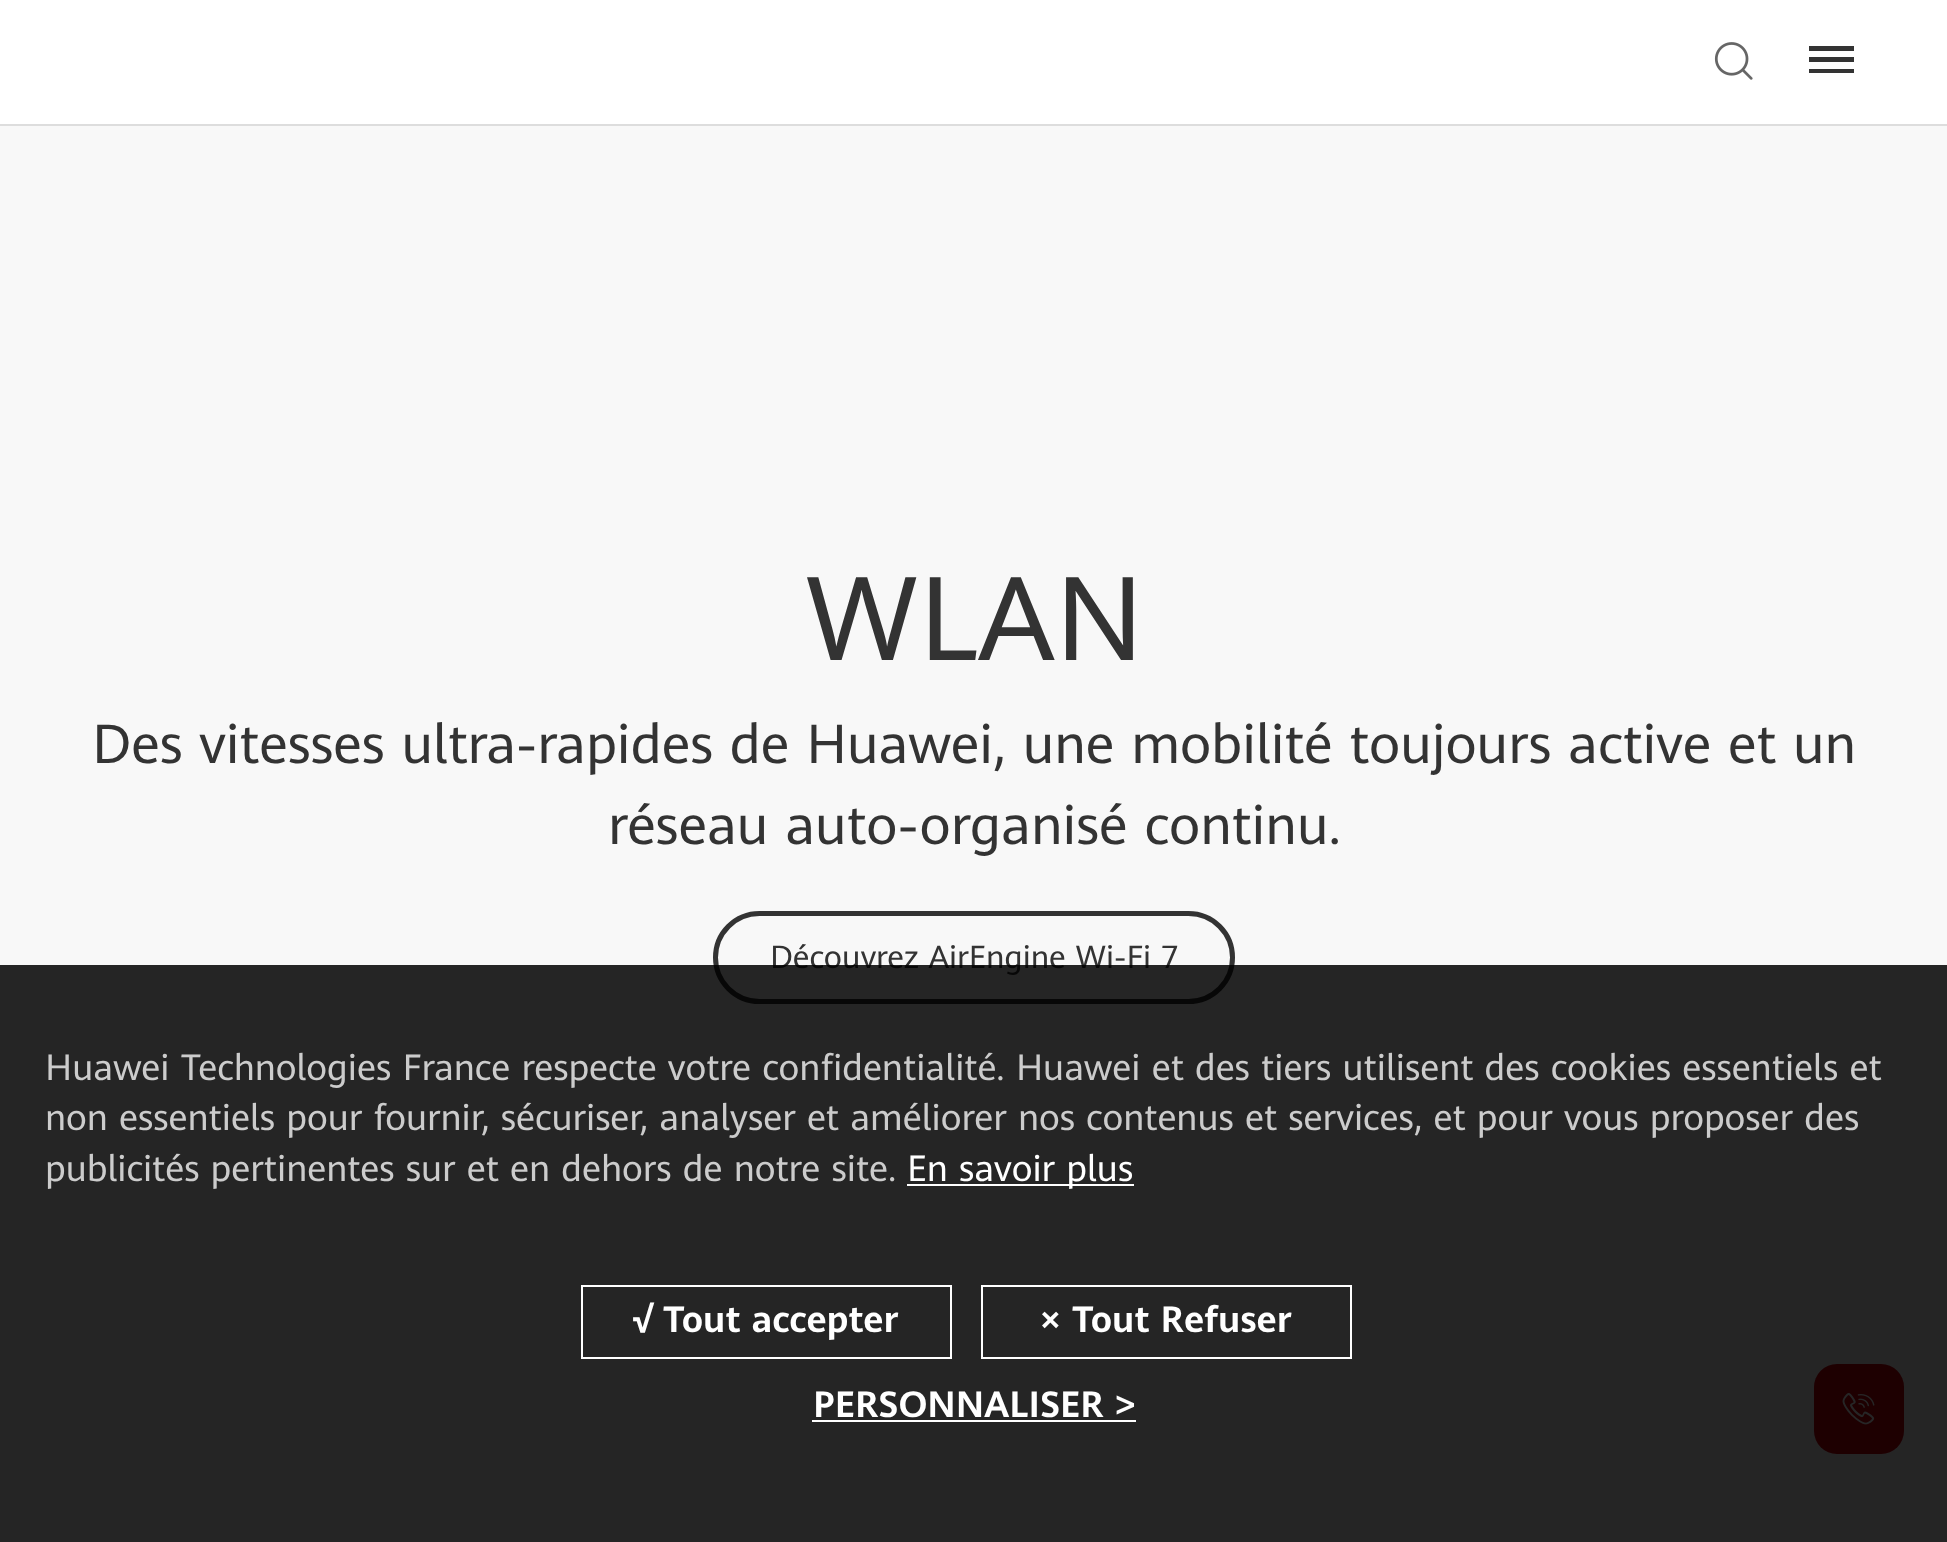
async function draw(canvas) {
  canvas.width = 1947;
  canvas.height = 1542;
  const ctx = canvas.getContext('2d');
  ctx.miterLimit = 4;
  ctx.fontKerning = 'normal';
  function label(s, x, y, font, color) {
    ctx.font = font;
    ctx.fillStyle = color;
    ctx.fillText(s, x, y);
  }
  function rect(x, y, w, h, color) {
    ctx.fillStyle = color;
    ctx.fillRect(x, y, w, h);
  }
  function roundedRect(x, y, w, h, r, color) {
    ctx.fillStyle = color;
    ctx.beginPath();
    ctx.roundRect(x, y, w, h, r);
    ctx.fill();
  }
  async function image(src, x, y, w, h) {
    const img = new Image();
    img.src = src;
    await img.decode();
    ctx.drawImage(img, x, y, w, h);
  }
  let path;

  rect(0, 0, 1947, 1542, '#fff');
  rect(0, 124, 1947, 2, '#ddd');
  await image('assets/img1.png', 1714, 42, 39, 38);
  ctx.fillStyle = '#333';
  path = new Path2D('M1809 69V73H1854V69ZM1809 57V62H1854V57ZM1809 46V51H1854V46Z');
  ctx.fill(path);
  rect(0, 126, 1947, 1416, '#f8f8f8');
  label('WLAN', 805, 660, '117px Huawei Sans', '#333');
  label('Des vitesses ultra-rapides de Huawei, une mobilité toujours active et un', 92, 763, '54px Huawei Sans', '#333');
  label('réseau auto-organisé continu.', 608, 844, '54px Huawei Sans', '#333');
  ctx.beginPath();
  ctx.roundRect(715.5, 913.5, 517, 88, 44);
  ctx.strokeStyle = '#333';
  ctx.lineWidth = 5;
  ctx.stroke();
  label('Découvrez AirEngine Wi-Fi 7', 770, 968, '31.5px Huawei Sans', '#333');
  roundedRect(1814, 1364, 90, 90, 23, '#c7000b');
  await image('assets/img2.png', 1842, 1392, 33, 33);
  rect(0, 965, 1947, 577, '#000000d9');
  label('Huawei Technologies France respecte votre confidentialité. Huawei et des tiers utilisent des cookies essentiels et', 45, 1080, '36px Huawei Sans', '#ccc');
  label('non essentiels pour fournir, sécuriser, analyser et améliorer nos contenus et services, et pour vous proposer des', 45, 1130, '36px Huawei Sans', '#ccc');
  label('publicités pertinentes sur et en dehors de notre site.', 45, 1181, '36px Huawei Sans', '#ccc');
  rect(907, 1184, 227, 2, '#fff');
  label('En savoir plus', 907, 1181, '36px Huawei Sans', '#fff');
  ctx.strokeStyle = '#fff';
  ctx.lineWidth = 2;
  ctx.strokeRect(582, 1286, 369, 72);
  label('√ Tout accepter', 632, 1332, 'bold 36px Huawei Sans', '#fff');
  ctx.strokeRect(982, 1286, 369, 72);
  label('× Tout Refuser', 1040, 1332, 'bold 36px Huawei Sans', '#fff');
  label('PERSONNALISER >', 813, 1417, 'bold 36px Huawei Sans', '#fff');
  rect(812, 1420, 324, 2, '#fff');
}

draw(document.querySelector('canvas'));
